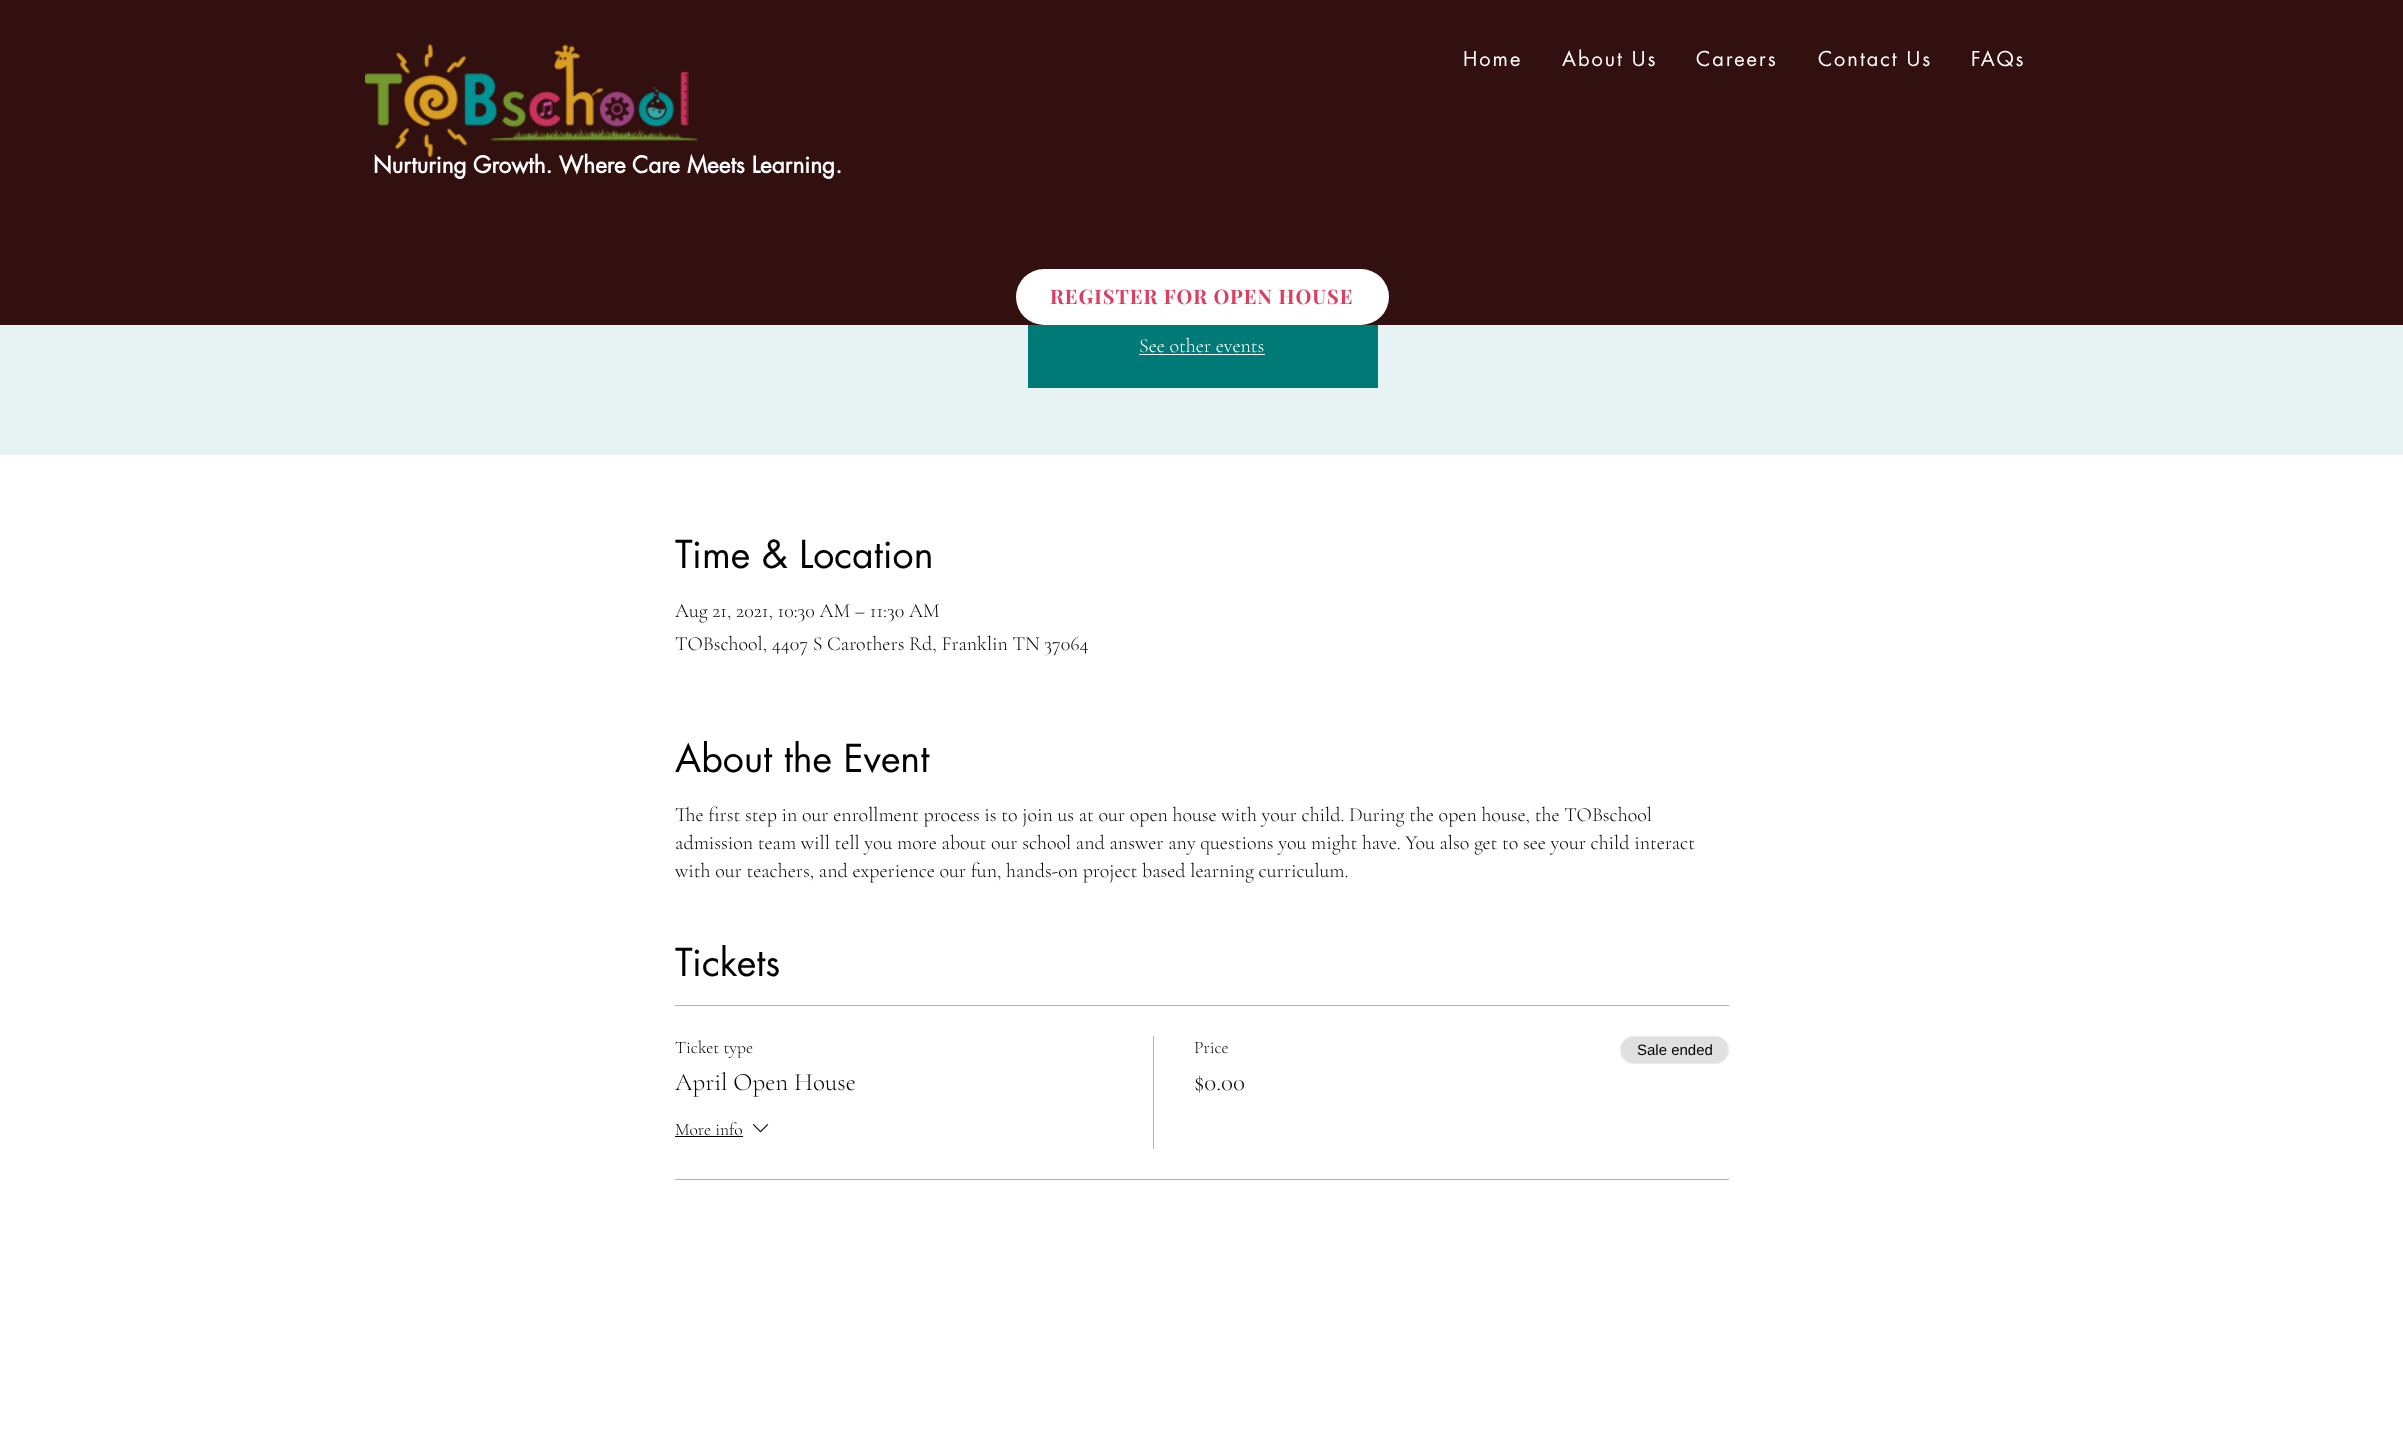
async function draw(canvas) {
  canvas.width = 2403;
  canvas.height = 1451;
  const ctx = canvas.getContext('2d');
  ctx.miterLimit = 4;
  ctx.fontKerning = 'normal';
  function label(s, x, y, font, color) {
    ctx.font = font;
    ctx.fillStyle = color;
    ctx.fillText(s, x, y);
  }
  function rect(x, y, w, h, color) {
    ctx.fillStyle = color;
    ctx.fillRect(x, y, w, h);
  }
  function roundedRect(x, y, w, h, r, color) {
    ctx.fillStyle = color;
    ctx.beginPath();
    ctx.roundRect(x, y, w, h, r);
    ctx.fill();
  }
  async function image(src, x, y, w, h) {
    const img = new Image();
    img.src = src;
    await img.decode();
    ctx.drawImage(img, x, y, w, h);
  }

  rect(0, 0, 2403, 1451, '#fff');
  rect(0, 0, 2403, 325, '#321010');
  await image('assets/img1.png', 365, 44, 333, 113);
  ctx.letterSpacing = '2px';
  label('Home', 1463, 66, '20px futura', '#fff');
  label('About Us', 1562, 66, '20px futura', '#fff');
  label('Careers', 1696, 66, '20px futura', '#fff');
  label('Contact Us', 1818, 66, '20px futura', '#fff');
  label('FAQs', 1971, 66, '20px futura', '#fff');
  ctx.letterSpacing = '0px';
  label('Nurturing Growth. Where Care Meets Learning.', 373, 173, 'bold 22.5px futura', '#fff');
  roundedRect(1016, 269, 373, 56, 28, '#fff');
  ctx.letterSpacing = '1px';
  label('REGISTER FOR OPEN HOUSE', 1050, 304, 'bold 20px Playfair Display', '#dc3e61');
  rect(0, 325, 2403, 130, '#e6f3f2');
  rect(1028, 325, 350, 63, '#007a76');
  ctx.letterSpacing = '0px';
  label('See other events', 1139, 352, '300 20px Cormorant Garamond', '#fff');
  rect(1139, 354, 126, 1, '#fff');
  label('Time & Location', 675, 568, '37.5px futura', '#000');
  label('Aug 21, 2021, 10:30 AM – 11:30 AM', 675, 617, '300 20px Cormorant Garamond', '#000');
  label('TOBschool, 4407 S Carothers Rd, Franklin TN 37064', 675, 650, '300 20px Cormorant Garamond', '#000');
  label('About the Event', 675, 772, '37.5px futura', '#000');
  label('The first step in our enrollment process is to join us at our open house with your child. During the open house, the TOBschool', 675, 821, '300 20px Cormorant Garamond', '#000');
  label('admission team will tell you more about our school and answer any questions you might have. You also get to see your child interact', 675, 849, '300 20px Cormorant Garamond', '#000');
  label('with our teachers, and experience our fun, hands-on project based learning curriculum.', 675, 877, '300 20px Cormorant Garamond', '#000');
  label('Tickets', 675, 976, '37.5px futura', '#000');
  rect(675, 1005, 1054, 1, '#b3b3b3');
  rect(675, 1179, 1054, 1, '#b3b3b3');
  label('Ticket type', 675, 1053, '300 17.5px Cormorant Garamond', '#000');
  label('April Open House', 675, 1090, '300 25px Cormorant Garamond', '#000');
  label('More info', 675, 1135, '300 17.5px Cormorant Garamond', '#000');
  rect(675, 1136, 68, 1, '#000');
  await image('assets/img2.png', 752, 1124, 17, 9);
  rect(1153, 1036, 1, 113, '#b3b3b3');
  label('Price', 1194, 1053, '300 17.5px Cormorant Garamond', '#000');
  label('$0.00', 1194, 1090, '300 25px Cormorant Garamond', '#000');
  roundedRect(1620, 1036, 109, 28, 14, '#e0e0e0');
  ctx.beginPath();
  ctx.roundRect(1620.5, 1036.5, 108, 27, 13.5);
  ctx.strokeStyle = '#ffffff66';
  ctx.stroke();
  label('Sale ended', 1637, 1055, '15px Liberation Sans', '#000');
}

draw(document.querySelector('canvas'));
